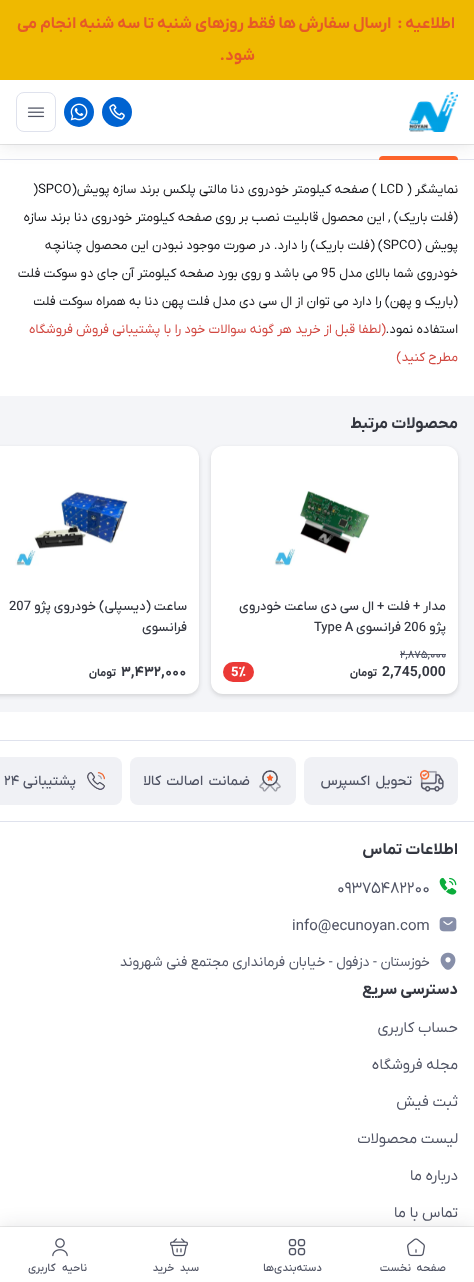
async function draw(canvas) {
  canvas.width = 474;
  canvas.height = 1282;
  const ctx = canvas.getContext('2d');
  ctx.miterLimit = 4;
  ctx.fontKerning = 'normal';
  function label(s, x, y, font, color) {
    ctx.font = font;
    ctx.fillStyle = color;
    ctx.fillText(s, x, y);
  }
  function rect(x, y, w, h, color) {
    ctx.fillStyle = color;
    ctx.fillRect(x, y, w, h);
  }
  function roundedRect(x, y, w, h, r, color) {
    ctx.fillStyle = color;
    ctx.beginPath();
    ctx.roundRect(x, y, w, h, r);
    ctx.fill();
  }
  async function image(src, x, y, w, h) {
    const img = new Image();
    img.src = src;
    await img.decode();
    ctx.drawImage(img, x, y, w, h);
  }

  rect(0, 0, 474, 1282, '#fff');
  rect(0, 144, 474, 1, '#e8e8e8');
  rect(0, 159, 474, 1, '#dfe2ed');
  ctx.fillStyle = '#ff642b';
  ctx.beginPath();
  ctx.roundRect(379, 156, 79, 4, [4, 4, 0, 0]);
  ctx.fill();
  ctx.fillStyle = '#18191d1f';
  ctx.filter = 'blur(10px)';
  ctx.beginPath();
  ctx.rect(0, 0, 474, 144);
  ctx.fill();
  ctx.filter = 'none';
  rect(0, 80, 474, 64, '#fff');
  rect(0, 0, 474, 80, '#efb900');
  ctx.direction = 'rtl';
  label('اطلاعیه :  ارسال سفارش ها فقط روزهای شنبه تا سه شنبه انجام می', 455, 28, 'bold 16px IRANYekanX', '#e65a27');
  label('شود.', 255, 60, 'bold 16px IRANYekanX', '#e65a27');
  await image('assets/img1.png', 409, 92, 49, 40);
  ctx.fillStyle = '#0063d1';
  ctx.beginPath();
  ctx.arc(117, 112, 15, 0, 2 * Math.PI);
  ctx.fill();
  await image('assets/img2.png', 109, 104, 16, 16);
  ctx.beginPath();
  ctx.arc(79, 112, 15, 0, 2 * Math.PI);
  ctx.fill();
  await image('assets/img3.png', 70, 103, 18, 18);
  ctx.beginPath();
  ctx.roundRect(16.5, 92.5, 39, 39, 7.5);
  ctx.strokeStyle = '#dfe2ed';
  ctx.stroke();
  await image('assets/img4.png', 27, 107, 18, 11);
  label('نمایشگر (', 458, 193, '13px IRANYekanX', '#18191d');
  ctx.direction = 'ltr';
  label('LCD', 380, 193, '13px IRANYekanX', '#18191d');
  ctx.direction = 'rtl';
  label(') صفحه کیلومتر خودروی دنا مالتی پلکس برند سازه پویش(', 377, 193, '13px IRANYekanX', '#18191d');
  ctx.direction = 'ltr';
  label(')SPCO', 33, 193, '13px IRANYekanX', '#18191d');
  ctx.direction = 'rtl';
  label('(فلت باریک) , این محصول قابلیت نصب بر روی صفحه کیلومتر خودروی دنا برند سازه', 458, 221, '13px IRANYekanX', '#18191d');
  label('پویش (', 458, 249, '13px IRANYekanX', '#18191d');
  ctx.direction = 'ltr';
  label('SPCO', 383, 249, '13px IRANYekanX', '#18191d');
  ctx.direction = 'rtl';
  label(') (فلت باریک) را دارد. در صورت موجود نبودن این محصول چنانچه', 383, 249, '13px IRANYekanX', '#18191d');
  label('خودروی شما بالای مدل', 458, 277, '13px IRANYekanX', '#18191d');
  ctx.direction = 'ltr';
  label('95', 321, 277, '13px IRANYekanX', '#18191d');
  ctx.direction = 'rtl';
  label('می باشد و روی بورد صفحه کیلومتر آن جای دو سوکت فلت', 318, 277, '13px IRANYekanX', '#18191d');
  label('(باریک و پهن) را دارد می توان از ال سی دی مدل فلت پهن دنا به همراه سوکت فلت', 458, 305, '13px IRANYekanX', '#18191d');
  label('استفاده نمود.', 458, 333, '13px IRANYekanX', '#18191d');
  label('(لطفا قبل از خرید هر گونه سوالات خود را با پشتیبانی فروش فروشگاه', 386, 333, '13px IRANYekanX', '#d14841');
  label('مطرح کنید)', 458, 361, '13px IRANYekanX', '#d14841');
  rect(0, 396, 474, 316, '#f4f5f8');
  label('محصولات مرتبط', 458, 428, 'bold 16px IRANYekanX', '#343740');
  ctx.fillStyle = '#18191d26';
  ctx.filter = 'blur(2px)';
  ctx.beginPath();
  ctx.roundRect(211, 448, 247, 248, 12);
  ctx.fill();
  ctx.filter = 'none';
  roundedRect(211, 446, 247, 248, 12, '#fff');
  await image('assets/img5.png', 274, 491, 96, 75);
  label('مدار + فلت + ال سی دی ساعت خودروی', 446, 610, '500 13px IRANYekanX', '#343740');
  label('پژو', 446, 631, '500 13px IRANYekanX', '#343740');
  ctx.direction = 'ltr';
  label('206', 404, 631, '500 13px IRANYekanX', '#343740');
  ctx.direction = 'rtl';
  label('فرانسوی', 401, 631, '500 13px IRANYekanX', '#343740');
  ctx.direction = 'ltr';
  label('Type A', 314, 631, '500 13px IRANYekanX', '#343740');
  label('2,875,000', 400, 658, '500 11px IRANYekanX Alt', '#505464');
  rect(400, 654, 46, 1, '#505464');
  label('2,745,000', 382, 676, 'bold 14px IRANYekanX', '#343740');
  ctx.letterSpacing = '-0.5px';
  ctx.direction = 'rtl';
  label('تومان', 377, 676, 'bold 11px IRANYekanX', '#343740');
  roundedRect(223, 662, 31, 20, 10, '#eb3936');
  ctx.letterSpacing = '0px';
  ctx.direction = 'ltr';
  label('5٪', 231, 676, '800 13px IRANYekanX', '#fff');
  ctx.fillStyle = '#18191d26';
  ctx.filter = 'blur(2px)';
  ctx.beginPath();
  ctx.roundRect(-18, 448, 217, 248, 12);
  ctx.fill();
  ctx.filter = 'none';
  ctx.fillStyle = '#fff';
  ctx.beginPath();
  ctx.roundRect(0, 446, 199, 248, [0, 12, 12, 0]);
  ctx.fill();
  await image('assets/img6.png', 15, 491, 113, 75);
  ctx.direction = 'rtl';
  label('ساعت (دیسپلی)', 187, 610, '500 13px IRANYekanX', '#343740');
  label('خودروی پژو', 96, 610, '500 13px IRANYekanX', '#343740');
  ctx.direction = 'ltr';
  label('207', 9, 610, '500 13px IRANYekanX', '#343740');
  ctx.direction = 'rtl';
  label('فرانسوی', 187, 631, '500 13px IRANYekanX', '#343740');
  ctx.direction = 'ltr';
  label('3,432,000', 121, 676, 'bold 14px IRANYekanX Alt', '#343740');
  ctx.letterSpacing = '-0.5px';
  ctx.direction = 'rtl';
  label('تومان', 116, 676, 'bold 11px IRANYekanX', '#343740');
  rect(0, 740, 474, 1, '#dfe2ed');
  rect(0, 821, 474, 1, '#dfe2ed');
  roundedRect(304, 757, 154, 48, 8, '#f0f1f5');
  await image('assets/img7.png', 420, 769, 24, 23);
  ctx.letterSpacing = '-0.25px';
  ctx.wordSpacing = '2px';
  label('تحویل اکسپرس', 412, 785, '500 14px IRANYekanX', '#505464');
  roundedRect(130, 757, 166, 48, 8, '#f0f1f5');
  await image('assets/img8.png', 259, 770, 22, 22);
  label('ضمانت اصالت کالا', 250, 785, '500 14px IRANYekanX', '#505464');
  ctx.fillStyle = '#f0f1f5';
  ctx.beginPath();
  ctx.roundRect(0, 757, 122, 48, [0, 8, 8, 0]);
  ctx.fill();
  await image('assets/img9.png', 87, 772, 18, 18);
  ctx.wordSpacing = '0px';
  label('پشتیبانی', 76, 785, '500 14px IRANYekanX', '#505464');
  ctx.direction = 'ltr';
  label('۲۴', 4, 785, '500 14px IRANYekanX', '#505464');
  ctx.letterSpacing = '0px';
  ctx.direction = 'rtl';
  label('اطلاعات تماس', 458, 854, 'bold 16px IRANYekanX', '#343740');
  await image('assets/img10.png', 439, 877, 18, 18);
  ctx.direction = 'ltr';
  label('09375482200', 337, 893, '16px IRANYekanX Alt', '#505464');
  await image('assets/img11.png', 439, 917, 18, 15);
  label('info@ecunoyan.com', 292, 930, '15px IRANYekanX', '#505464');
  await image('assets/img12.png', 440, 952, 16, 18);
  ctx.direction = 'rtl';
  label('خوزستان - دزفول - خیابان فرمانداری مجتمع فنی شهروند', 430, 966, '14px IRANYekanX', '#505464');
  label('دسترسی سریع', 458, 994, 'bold 16px IRANYekanX', '#343740');
  label('حساب کاربری', 458, 1032, '15px IRANYekanX', '#505464');
  label('مجله فروشگاه', 458, 1069, '15px IRANYekanX', '#505464');
  label('ثبت فیش', 458, 1106, '15px IRANYekanX', '#505464');
  label('لیست محصولات', 458, 1143, '15px IRANYekanX', '#505464');
  label('درباره ما', 458, 1180, '15px IRANYekanX', '#505464');
  label('تماس با ما', 458, 1217, '15px IRANYekanX', '#505464');
  ctx.strokeStyle = '#ededed';
  ctx.strokeRect(-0.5, 1226.5, 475, 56);
  ctx.fillStyle = '#18191d1f';
  ctx.filter = 'blur(10px)';
  ctx.beginPath();
  ctx.rect(0, 1227, 474, 55);
  ctx.fill();
  ctx.filter = 'none';
  rect(0, 1227, 474, 55, '#fff');
  await image('assets/img13.png', 407, 1238, 18, 19);
  ctx.letterSpacing = '-0.25px';
  ctx.wordSpacing = '3px';
  label('صفحه نخست', 446, 1271, '500 11px IRANYekanX', '#505464');
  await image('assets/img14.png', 288, 1238, 18, 18);
  ctx.wordSpacing = '0px';
  label('دسته‌بندی‌ها', 322, 1271, '500 11px IRANYekanX', '#505464');
  await image('assets/img15.png', 170, 1238, 18, 19);
  ctx.wordSpacing = '3px';
  label('سبد خرید', 199, 1271, '500 11px IRANYekanX', '#505464');
  await image('assets/img16.png', 52, 1238, 16, 19);
  ctx.wordSpacing = '4px';
  label('ناحیه کاربری', 87, 1271, '500 11px IRANYekanX', '#505464');
}

draw(document.querySelector('canvas'));
